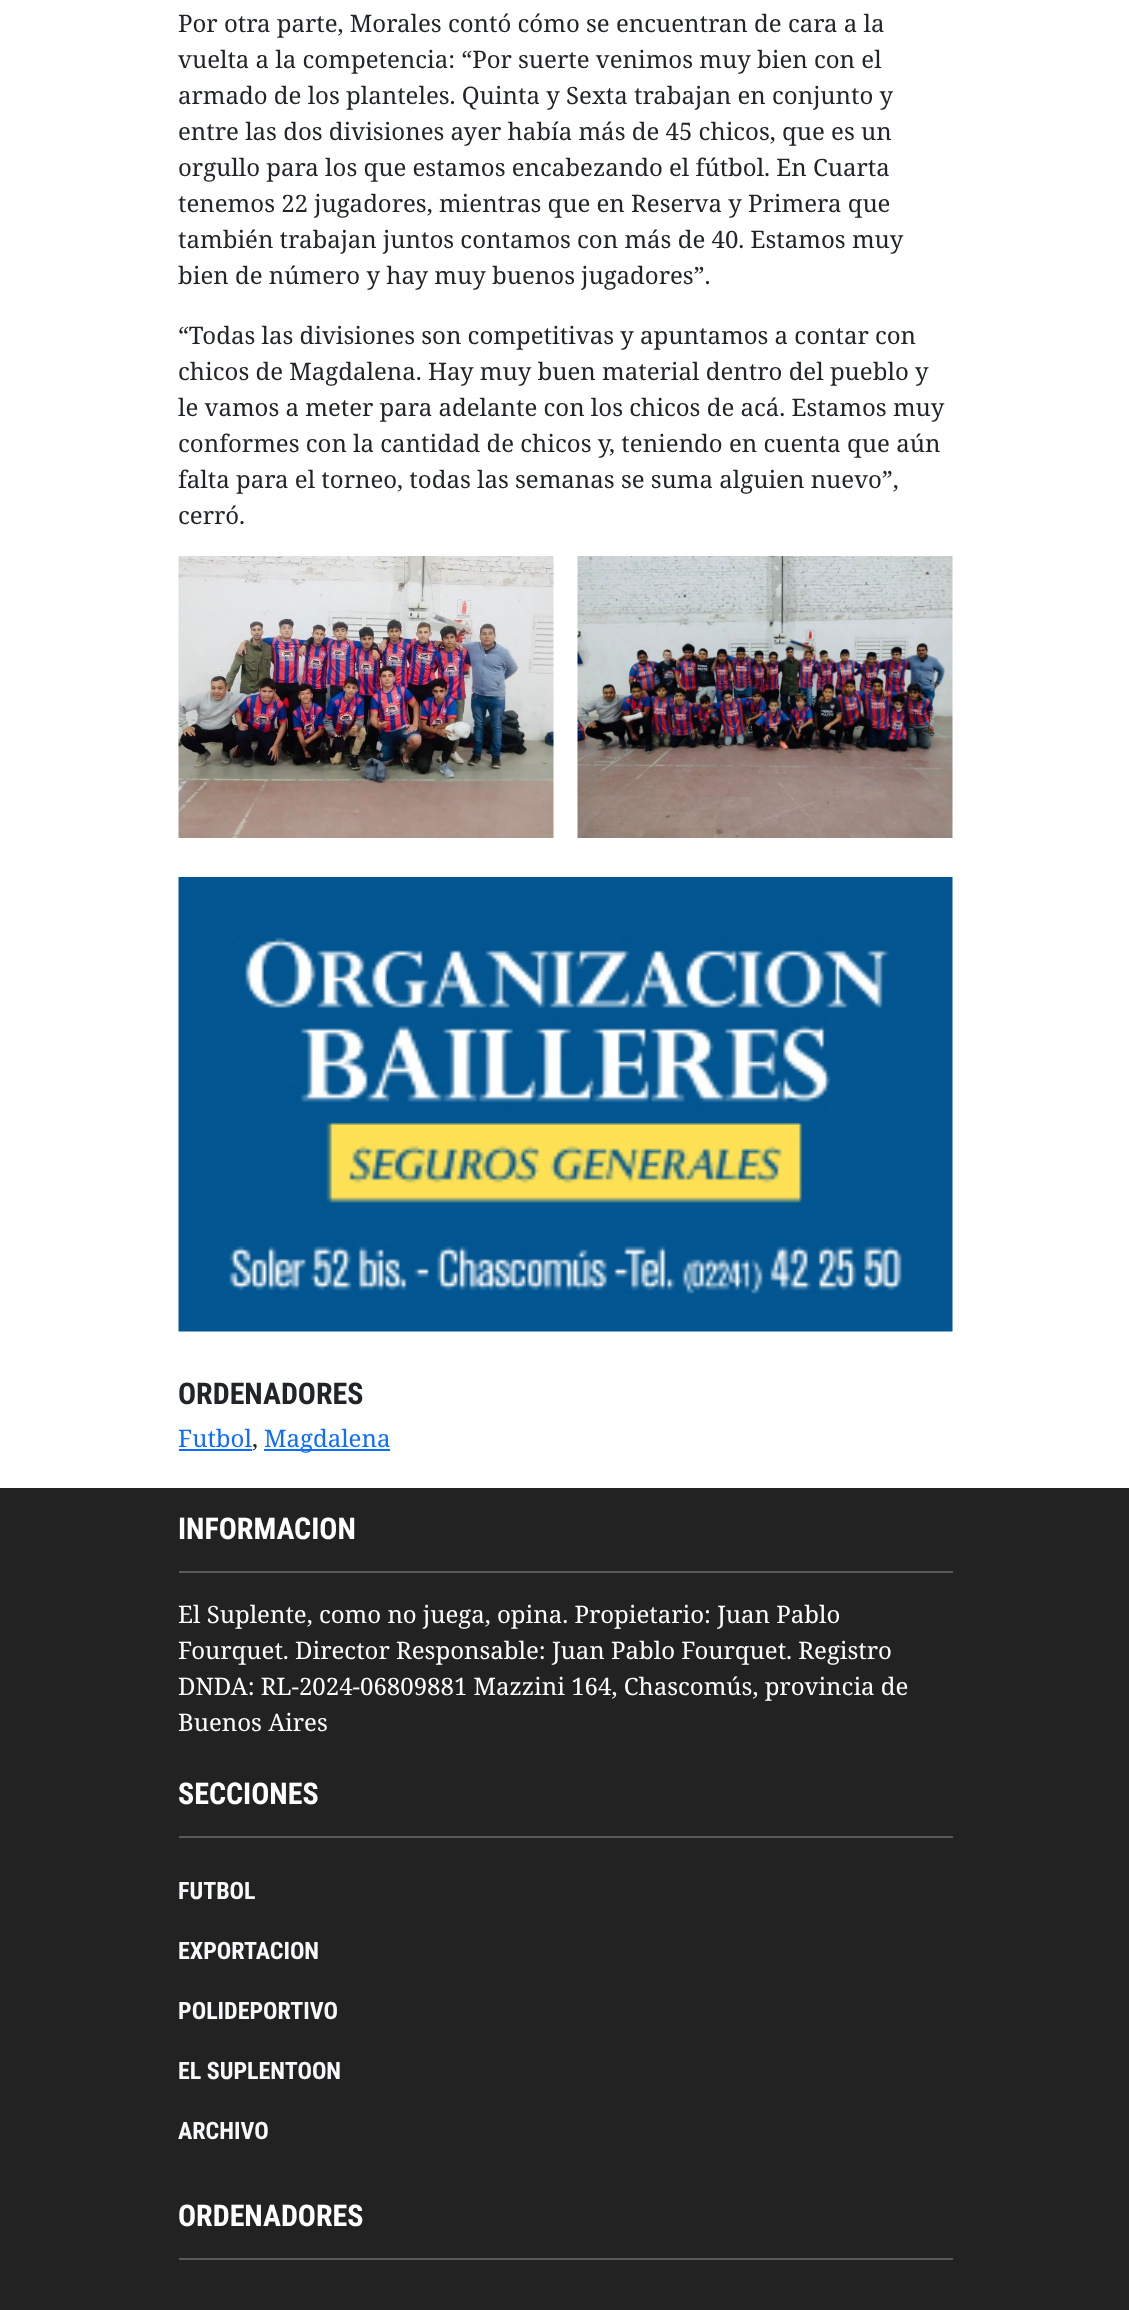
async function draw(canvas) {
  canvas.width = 1129;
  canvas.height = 2310;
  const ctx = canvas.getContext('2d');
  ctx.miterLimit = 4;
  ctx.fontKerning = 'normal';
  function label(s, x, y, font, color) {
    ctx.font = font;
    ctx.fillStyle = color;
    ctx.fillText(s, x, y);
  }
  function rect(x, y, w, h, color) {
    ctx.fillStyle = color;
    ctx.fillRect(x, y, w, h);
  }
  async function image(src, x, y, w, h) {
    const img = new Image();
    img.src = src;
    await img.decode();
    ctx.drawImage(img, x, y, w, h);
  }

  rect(0, 0, 1129, 2310, '#fff');
  label('Por otra parte, Morales contó cómo se encuentran de cara a la', 178, 32, '24px Noto Serif', '#212529');
  label('vuelta a la competencia: “Por suerte venimos muy bien con el', 178, 68, '24px Noto Serif', '#212529');
  label('armado de los planteles. Quinta y Sexta trabajan en conjunto y', 178, 104, '24px Noto Serif', '#212529');
  label('entre las dos divisiones ayer había más de 45 chicos, que es un', 178, 140, '24px Noto Serif', '#212529');
  label('orgullo para los que estamos encabezando el fútbol. En Cuarta', 178, 176, '24px Noto Serif', '#212529');
  label('tenemos 22 jugadores, mientras que en Reserva y Primera que', 178, 212, '24px Noto Serif', '#212529');
  label('también trabajan juntos contamos con más de 40. Estamos muy', 178, 248, '24px Noto Serif', '#212529');
  label('bien de número y hay muy buenos jugadores”.', 178, 284, '24px Noto Serif', '#212529');
  label('“Todas las divisiones son competitivas y apuntamos a contar con', 178, 344, '24px Noto Serif', '#212529');
  label('chicos de Magdalena. Hay muy buen material dentro del pueblo y', 178, 380, '24px Noto Serif', '#212529');
  label('le vamos a meter para adelante con los chicos de acá. Estamos muy', 178, 416, '24px Noto Serif', '#212529');
  label('conformes con la cantidad de chicos y, teniendo en cuenta que aún', 178, 452, '24px Noto Serif', '#212529');
  label('falta para el torneo, todas las semanas se suma alguien nuevo”,', 178, 488, '24px Noto Serif', '#212529');
  label('cerró.', 178, 524, '24px Noto Serif', '#212529');
  await image('assets/img1.png', 178, 556, 376, 282);
  await image('assets/img2.png', 577, 556, 376, 282);
  await image('assets/img3.png', 178, 877, 775, 455);
  label('ORDENADORES', 178, 1404, 'bold 30px Roboto Condensed', '#212529');
  label('Futbol', 178, 1447, '24px Noto Serif', '#0d6efd');
  rect(179, 1449, 73, 2, '#0d6efd');
  label(',', 252, 1447, '24px Noto Serif', '#212529');
  rect(264, 1449, 126, 2, '#0d6efd');
  label('Magdalena', 264, 1447, '24px Noto Serif', '#0d6efd');
  rect(0, 1488, 1129, 822, '#222');
  label('INFORMACION', 178, 1539, 'bold 30px Roboto Condensed', '#fff');
  rect(179, 1571, 774, 2, '#595959');
  label('El Suplente, como no juega, opina. Propietario: Juan Pablo', 178, 1623, '24px Noto Serif', '#fff');
  label('Fourquet. Director Responsable: Juan Pablo Fourquet. Registro', 178, 1659, '24px Noto Serif', '#fff');
  label('DNDA: RL-2024-06809881 Mazzini 164, Chascomús, provincia de', 178, 1695, '24px Noto Serif', '#fff');
  label('Buenos Aires', 178, 1731, '24px Noto Serif', '#fff');
  label('SECCIONES', 178, 1804, 'bold 30px Roboto Condensed', '#fff');
  rect(179, 1836, 774, 2, '#595959');
  label('FUTBOL', 178, 1899, 'bold 24px Roboto Condensed', '#f8f9fa');
  label('EXPORTACION', 178, 1959, 'bold 24px Roboto Condensed', '#f8f9fa');
  label('POLIDEPORTIVO', 178, 2019, 'bold 24px Roboto Condensed', '#f8f9fa');
  label('EL SUPLENTOON', 178, 2079, 'bold 24px Roboto Condensed', '#f8f9fa');
  label('ARCHIVO', 178, 2139, 'bold 24px Roboto Condensed', '#f8f9fa');
  label('ORDENADORES', 178, 2226, 'bold 30px Roboto Condensed', '#fff');
  rect(179, 2258, 774, 2, '#595959');
}

draw(document.querySelector('canvas'));
